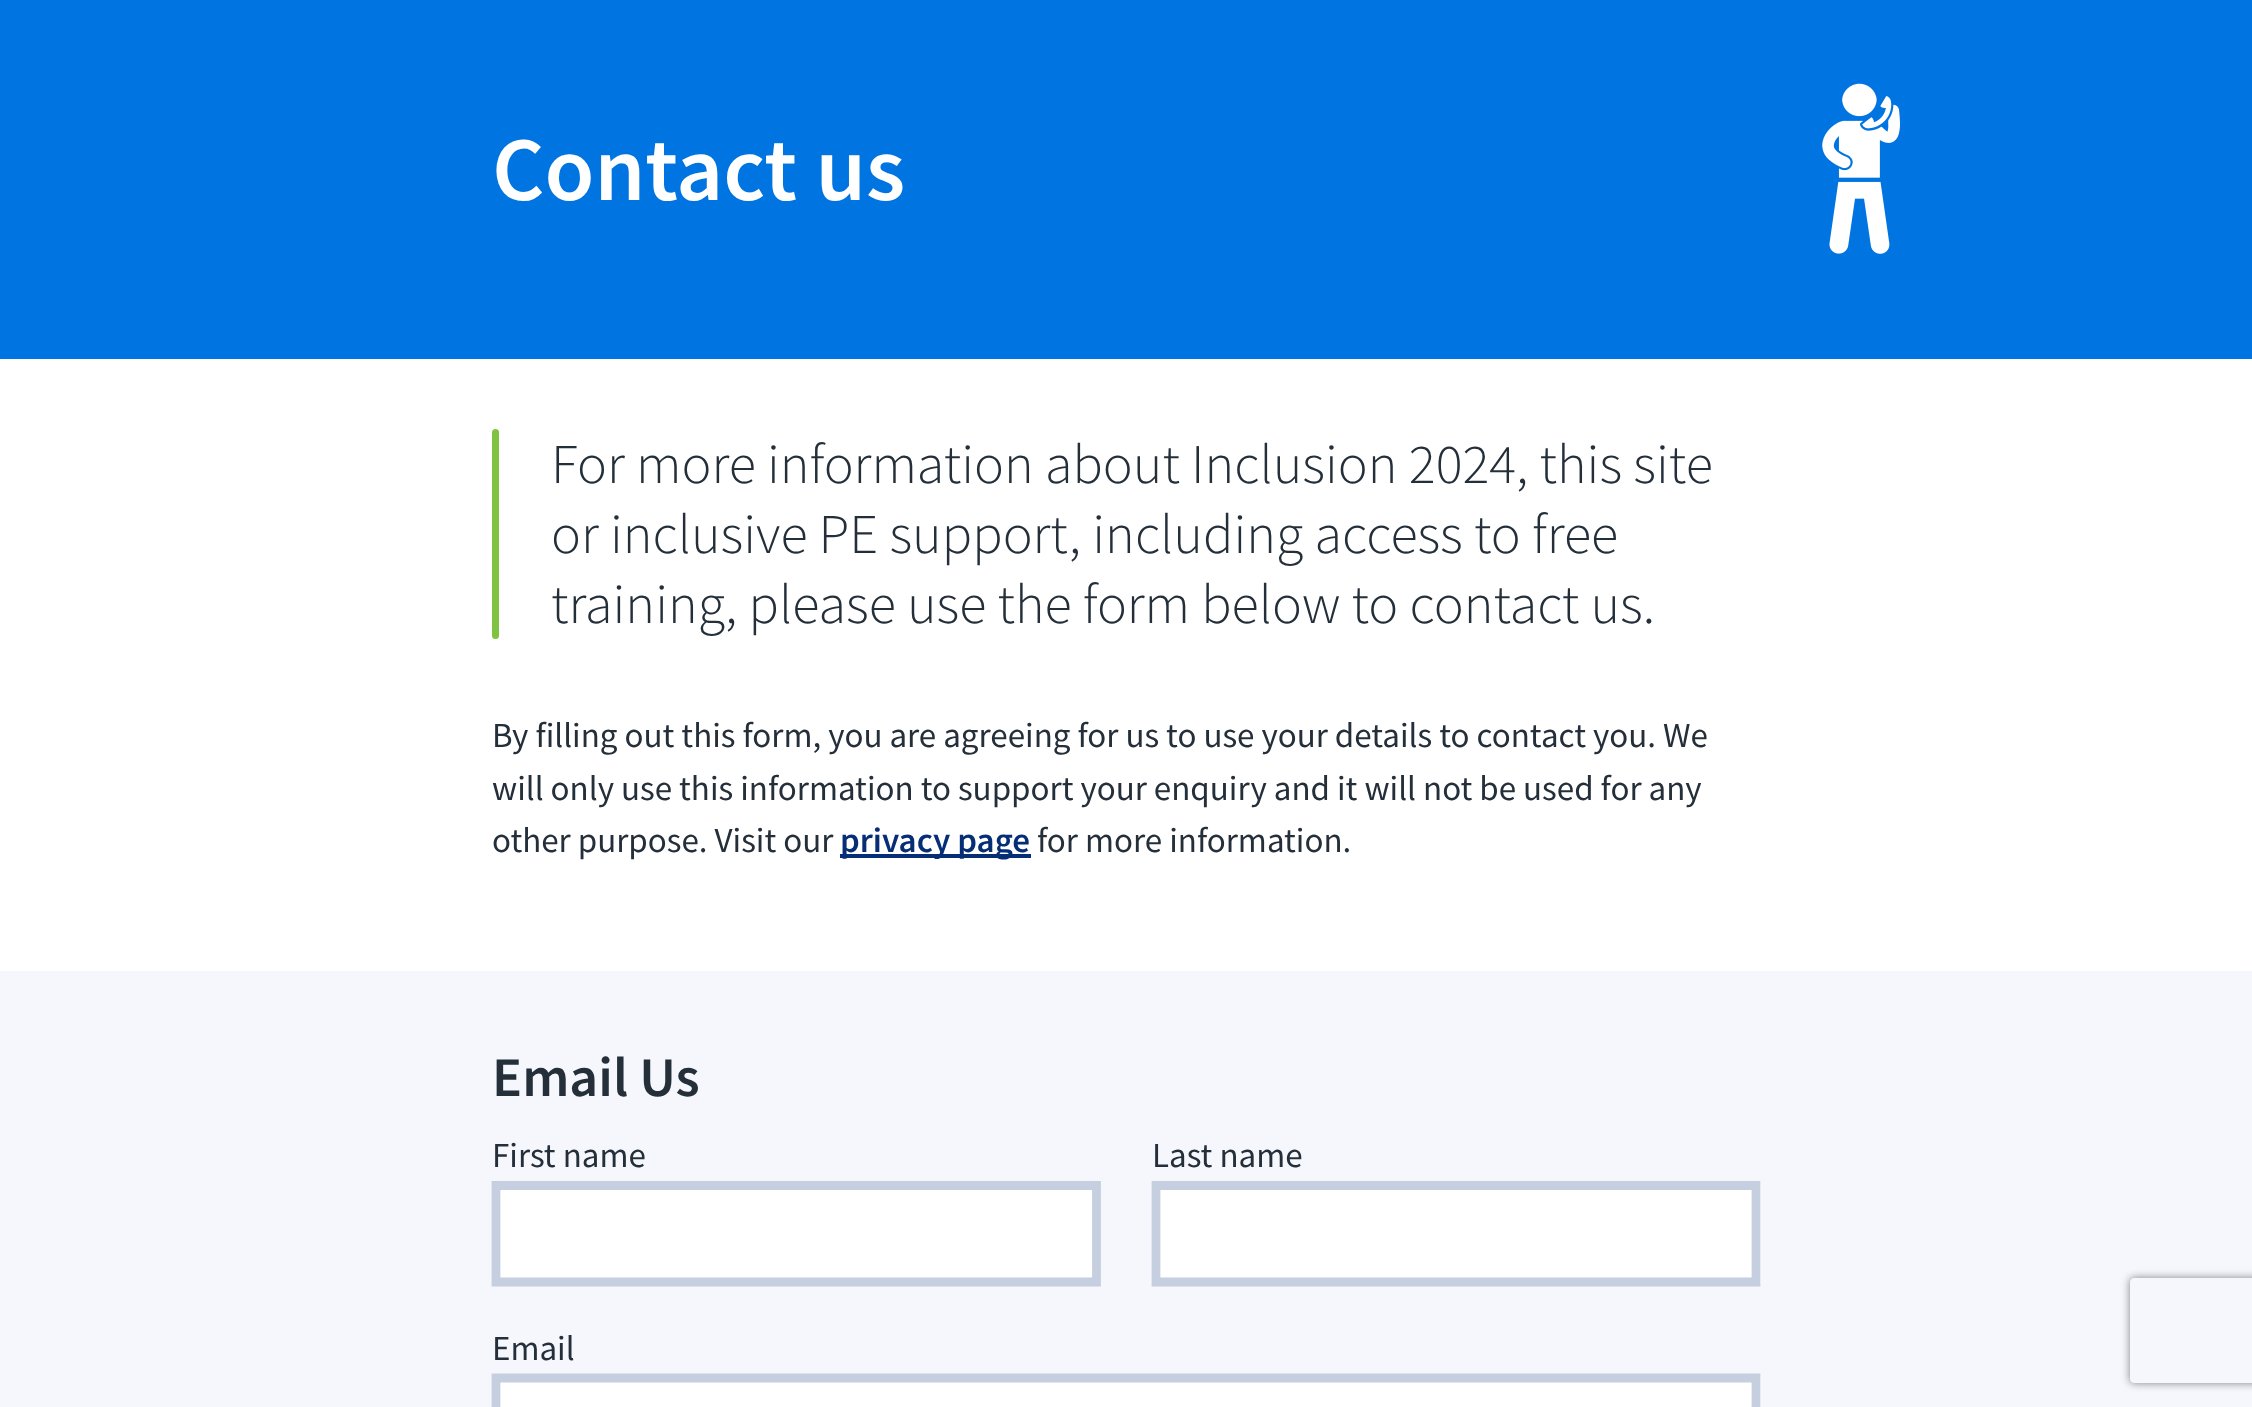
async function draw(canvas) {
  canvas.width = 2252;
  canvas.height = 1407;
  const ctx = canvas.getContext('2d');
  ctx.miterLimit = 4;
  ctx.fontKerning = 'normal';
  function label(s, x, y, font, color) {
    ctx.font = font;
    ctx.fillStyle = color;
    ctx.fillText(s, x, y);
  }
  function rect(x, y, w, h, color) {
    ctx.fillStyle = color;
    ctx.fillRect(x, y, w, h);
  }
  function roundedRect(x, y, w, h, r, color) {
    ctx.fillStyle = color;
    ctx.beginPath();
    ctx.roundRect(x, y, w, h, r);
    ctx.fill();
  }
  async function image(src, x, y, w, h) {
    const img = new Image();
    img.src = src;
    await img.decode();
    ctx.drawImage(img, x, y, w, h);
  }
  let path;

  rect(0, 0, 2252, 1407, '#fff');
  rect(0, 0, 2252, 359, '#0074e0');
  label('Contact us', 492, 200, '600 91px Source Sans Pro', '#fff');
  await image('assets/img1.png', 1822, 83, 79, 171);
  roundedRect(492, 429, 7, 210, 3.5, '#80c242');
  label('For more information about Inclusion 2024, this site', 551, 483, '300 56px Source Sans Pro', '#242f3a');
  label('or inclusive PE support, including access to free', 551, 553, '300 56px Source Sans Pro', '#242f3a');
  label('training, please use the form below to contact us.', 551, 623, '300 56px Source Sans Pro', '#242f3a');
  label('By filling out this form, you are agreeing for us to use your details to contact you. We', 492, 747, '35px Source Sans Pro', '#242f3a');
  label('will only use this information to support your enquiry and it will not be used for any', 492, 800, '35px Source Sans Pro', '#242f3a');
  label('other purpose. Visit our', 492, 852, '35px Source Sans Pro', '#242f3a');
  rect(840, 854, 191, 4, '#062e77');
  label('privacy page', 840, 852, '600 35px Source Sans Pro', '#062e77');
  label('for more information.', 1037, 852, '35px Source Sans Pro', '#242f3a');
  rect(0, 971, 2252, 436, '#f5f7fd');
  label('Email Us', 492, 1096, '600 56px Source Sans Pro', '#242f3a');
  label('First name', 492, 1167, '35px Source Sans Pro', '#242f3a');
  roundedRect(492, 1181, 609, 105, 4, '#fff');
  path = new Path2D('M496 1185.5H1096.5V1282H496Z');
  ctx.strokeStyle = '#c5cfe0';
  ctx.lineWidth = 8.8;
  ctx.stroke(path);
  label('Last name', 1152, 1167, '35px Source Sans Pro', '#242f3a');
  roundedRect(1152, 1181, 609, 105, 4, '#fff');
  path = new Path2D('M1156 1185.5H1756V1282H1156Z');
  ctx.stroke(path);
  label('Email', 492, 1360, '35px Source Sans Pro', '#242f3a');
  roundedRect(492, 1374, 1269, 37, 4, '#fff');
  path = new Path2D('M496 1378H1756V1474.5H496Z');
  ctx.stroke(path);
  ctx.save();
  path = new Path2D('M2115 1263H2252V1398H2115ZM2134 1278H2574C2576 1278 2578 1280 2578 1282V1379C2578 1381 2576 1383 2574 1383H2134C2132 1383 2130 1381 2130 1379V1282C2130 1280 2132 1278 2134 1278Z');
  ctx.clip(path, 'evenodd');
  ctx.fillStyle = '#808080';
  ctx.filter = 'blur(4.5px)';
  ctx.beginPath();
  ctx.roundRect(2130, 1278, 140, 105, 4);
  ctx.fill();
  ctx.filter = 'none';
  ctx.restore();
}

draw(document.querySelector('canvas'));
